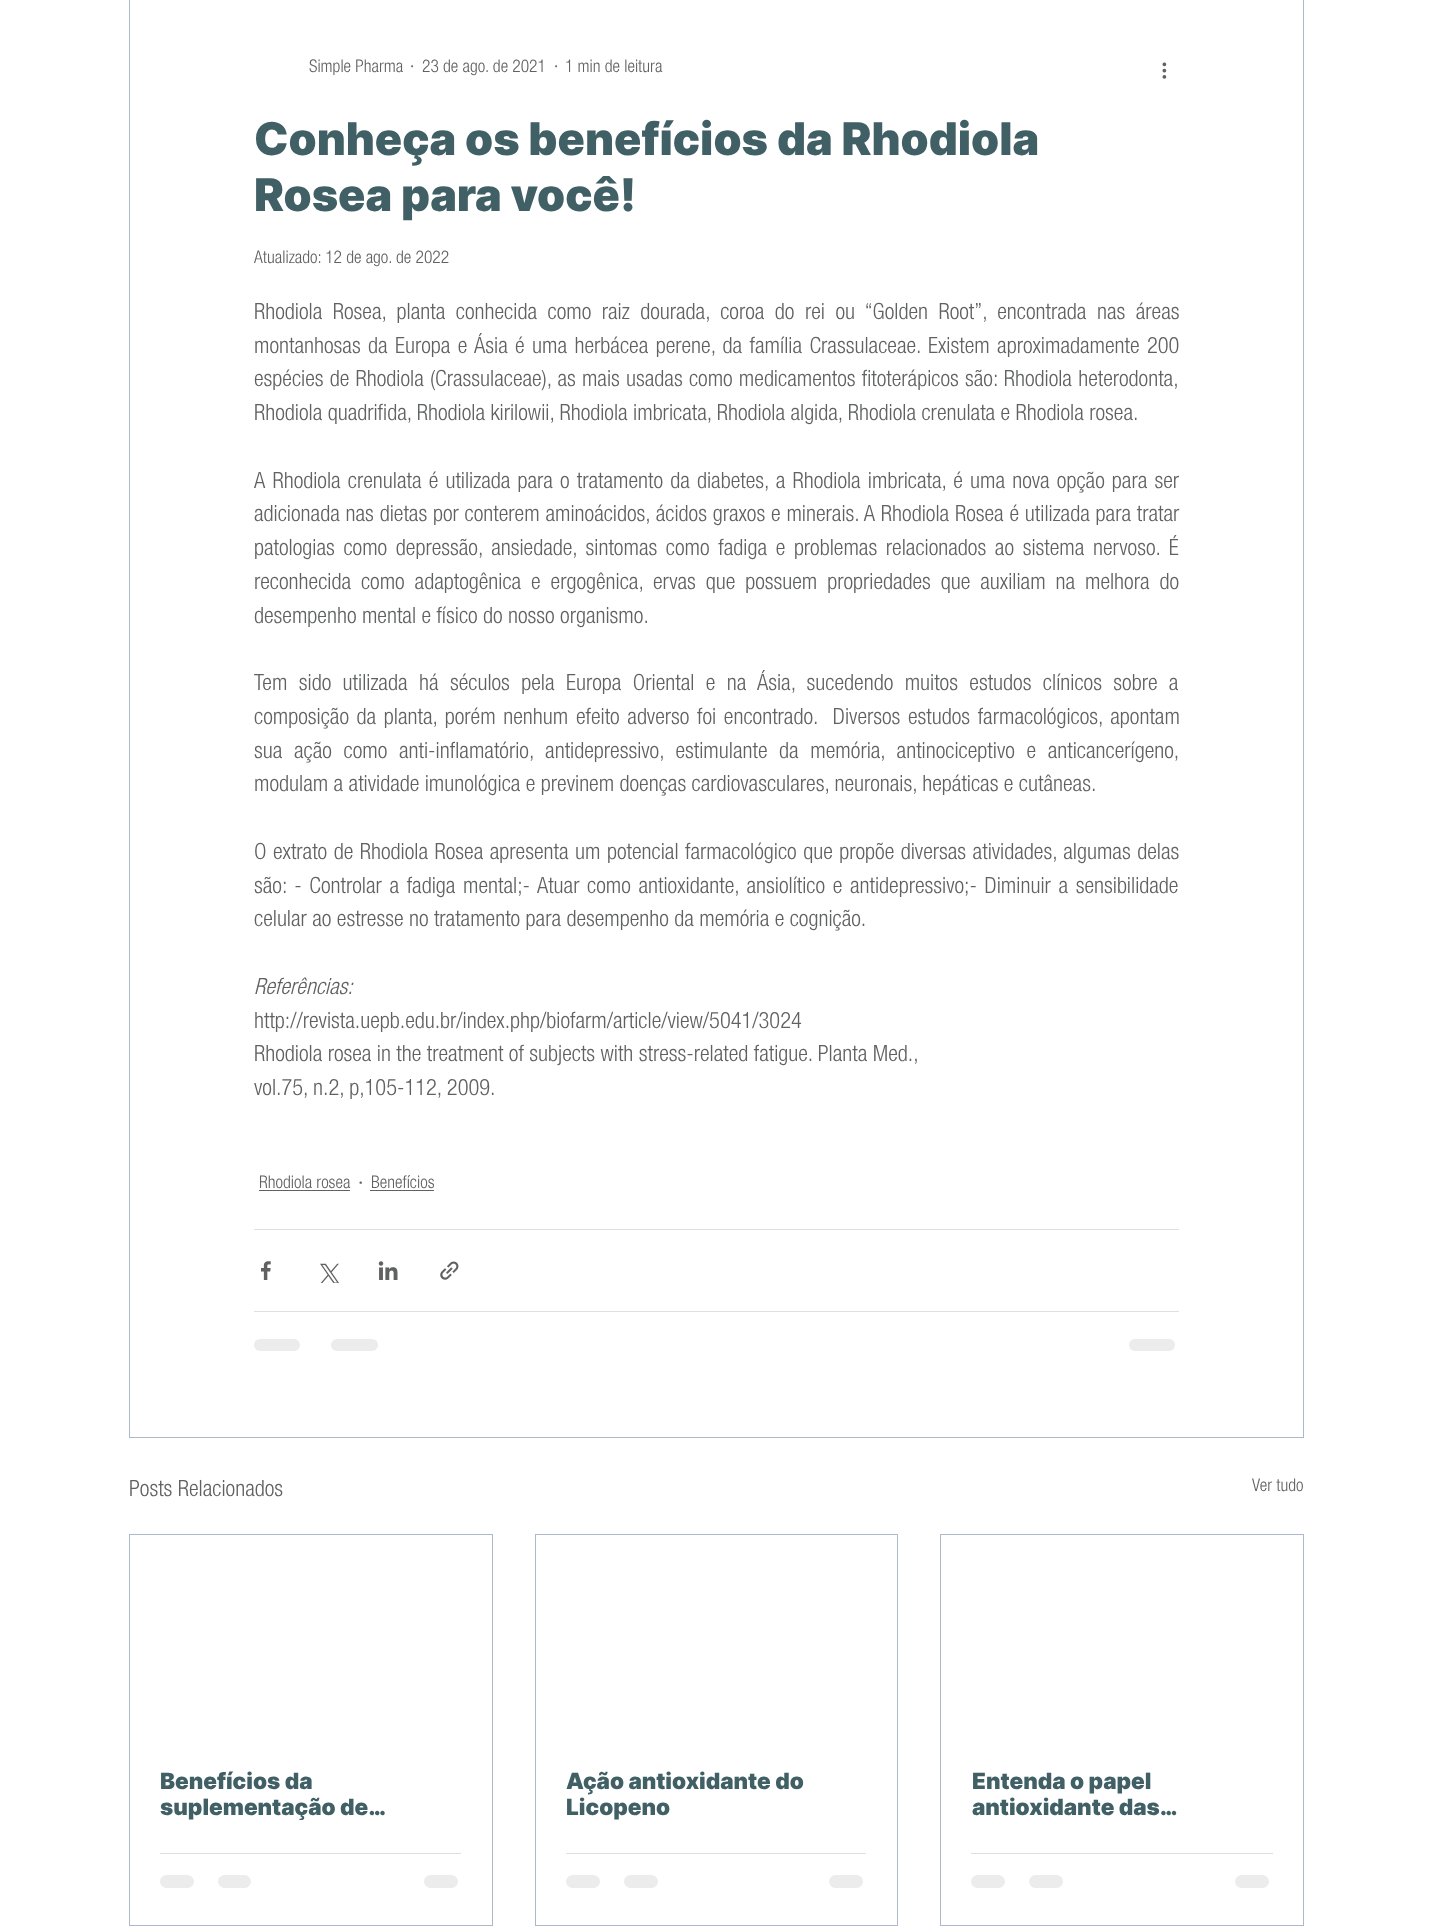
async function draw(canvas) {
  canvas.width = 1432;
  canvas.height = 1931;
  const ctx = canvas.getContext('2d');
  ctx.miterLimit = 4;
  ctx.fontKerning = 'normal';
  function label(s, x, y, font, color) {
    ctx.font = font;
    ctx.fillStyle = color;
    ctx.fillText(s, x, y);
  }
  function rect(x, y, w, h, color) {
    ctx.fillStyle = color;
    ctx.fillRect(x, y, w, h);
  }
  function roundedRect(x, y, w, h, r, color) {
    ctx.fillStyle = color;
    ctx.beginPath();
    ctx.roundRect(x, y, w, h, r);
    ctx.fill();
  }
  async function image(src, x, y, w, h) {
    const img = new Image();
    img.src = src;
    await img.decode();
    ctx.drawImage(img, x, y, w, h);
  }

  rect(0, 0, 1432, 1931, '#fff');
  ctx.strokeStyle = '#abb9cb';
  ctx.strokeRect(129.5, -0.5, 1174, 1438);
  label('Simple Pharma', 309, 72, '300 17.5px Helvetica Neue', '#606162');
  label('·', 410, 72, '300 17.5px Helvetica Neue', '#606162');
  label('23 de ago. de 2021', 422, 72, '300 17.5px Helvetica Neue', '#606162');
  label('·', 554, 72, '300 17.5px Helvetica Neue', '#606162');
  label('1 min de leitura', 565, 72, '300 17.5px Helvetica Neue', '#606162');
  await image('assets/img1.png', 1162, 62, 5, 17);
  label('Conheça os benefícios da Rhodiola', 254, 155, '900 45px Inter', '#406066');
  label('Rosea para você!', 254, 211, '900 45px Inter', '#406066');
  label('Atualizado: 12 de ago. de 2022', 254, 263, '300 17.5px Helvetica Neue', '#606162');
  ctx.wordSpacing = '5.1px';
  label('Rhodiola Rosea, planta conhecida como raiz dourada, coroa do rei ou “Golden Root”, encontrada nas áreas', 254, 319, '300 22.5px Helvetica Neue', '#606162');
  ctx.wordSpacing = '2px';
  label('montanhosas da Europa e Ásia é uma herbácea perene, da família Crassulaceae. Existem aproximadamente 200', 254, 353, '300 22.5px Helvetica Neue', '#606162');
  ctx.wordSpacing = '0.8px';
  label('espécies de Rhodiola (Crassulaceae), as mais usadas como medicamentos fitoterápicos são: Rhodiola heterodonta,', 254, 386, '300 22.5px Helvetica Neue', '#606162');
  ctx.wordSpacing = '0px';
  label('Rhodiola quadrifida, Rhodiola kirilowii, Rhodiola imbricata, Rhodiola algida, Rhodiola crenulata e Rhodiola rosea.', 254, 420, '300 22.5px Helvetica Neue', '#606162');
  ctx.wordSpacing = '1.75px';
  label('A Rhodiola crenulata é utilizada para o tratamento da diabetes, a Rhodiola imbricata, é uma nova opção para ser', 254, 488, '300 22.5px Helvetica Neue', '#606162');
  ctx.wordSpacing = '0.4px';
  label('adicionada nas dietas por conterem aminoácidos, ácidos graxos e minerais. A Rhodiola Rosea é utilizada para tratar', 254, 521, '300 22.5px Helvetica Neue', '#606162');
  ctx.wordSpacing = '3.25px';
  label('patologias como depressão, ansiedade, sintomas como fadiga e problemas relacionados ao sistema nervoso. É', 254, 555, '300 22.5px Helvetica Neue', '#606162');
  ctx.wordSpacing = '4.5px';
  label('reconhecida como adaptogênica e ergogênica, ervas que possuem propriedades que auxiliam na melhora do', 254, 589, '300 22.5px Helvetica Neue', '#606162');
  ctx.wordSpacing = '0px';
  label('desempenho mental e físico do nosso organismo.', 254, 623, '300 22.5px Helvetica Neue', '#606162');
  ctx.wordSpacing = '6px';
  label('Tem sido utilizada há séculos pela Europa Oriental e na Ásia, sucedendo muitos estudos clínicos sobre a', 254, 690, '300 22.5px Helvetica Neue', '#606162');
  ctx.wordSpacing = '2.25px';
  label('composição da planta, porém nenhum efeito adverso foi encontrado.  Diversos estudos farmacológicos, apontam', 254, 724, '300 22.5px Helvetica Neue', '#606162');
  ctx.wordSpacing = '6.25px';
  label('sua ação como anti-inflamatório, antidepressivo, estimulante da memória, antinociceptivo e anticancerígeno,', 254, 758, '300 22.5px Helvetica Neue', '#606162');
  ctx.wordSpacing = '0px';
  label('modulam a atividade imunológica e previnem doenças cardiovasculares, neuronais, hepáticas e cutâneas.', 254, 791, '300 22.5px Helvetica Neue', '#606162');
  ctx.wordSpacing = '1.1px';
  label('O extrato de Rhodiola Rosea apresenta um potencial farmacológico que propõe diversas atividades, algumas delas', 254, 859, '300 22.5px Helvetica Neue', '#606162');
  ctx.wordSpacing = '2.25px';
  label('são: - Controlar a fadiga mental;- Atuar como antioxidante, ansiolítico e antidepressivo;- Diminuir a sensibilidade', 254, 893, '300 22.5px Helvetica Neue', '#606162');
  ctx.wordSpacing = '0px';
  label('celular ao estresse no tratamento para desempenho da memória e cognição.', 254, 926, '300 22.5px Helvetica Neue', '#606162');
  label('Referências:', 254, 994, 'italic 300 22.5px Helvetica Neue', '#606162');
  label('http://revista.uepb.edu.br/index.php/biofarm/article/view/5041/3024', 254, 1028, '300 22.5px Helvetica Neue', '#606162');
  label('Rhodiola rosea in the treatment of subjects with stress-related fatigue. Planta Med.,', 254, 1061, '300 22.5px Helvetica Neue', '#606162');
  label('vol.75, n.2, p,105-112, 2009.', 254, 1095, '300 22.5px Helvetica Neue', '#606162');
  label('Rhodiola rosea', 259, 1188, '300 17.5px Helvetica Neue', '#606162');
  rect(259, 1190, 91, 1, '#606162');
  label('·', 358, 1190, '300 22.5px Helvetica Neue', '#606162');
  label('Benefícios', 371, 1188, '300 17.5px Helvetica Neue', '#606162');
  rect(370, 1190, 64, 1, '#606162');
  rect(254, 1229, 925, 1, '#dfdfe0');
  await image('assets/img2.png', 261, 1261, 10, 19);
  await image('assets/img3.png', 320, 1263, 19, 20);
  await image('assets/img4.png', 378, 1261, 20, 19);
  await image('assets/img5.png', 440, 1261, 19, 19);
  rect(254, 1311, 925, 1, '#dfdfe0');
  roundedRect(254, 1339, 46, 12, 6, '#ececec');
  roundedRect(331, 1339, 47, 12, 6, '#ececec');
  roundedRect(1129, 1339, 46, 12, 6, '#ececec');
  label('Posts Relacionados', 129, 1496, '300 22.5px Helvetica Neue', '#606162');
  label('Ver tudo', 1252, 1491, '300 17.5px Helvetica Neue', '#606162');
  ctx.strokeRect(129.5, 1534.5, 363, 391);
  label('Benefícios da', 160, 1789, '900 22.5px Inter', '#406066');
  ctx.save();
  ctx.beginPath();
  ctx.rect(160, 1768, 301, 52);
  ctx.clip();
  label('suplementação de…', 160, 1815, '900 22.5px Inter', '#406066');
  ctx.restore();
  rect(160, 1853, 301, 1, '#dfdfe0');
  roundedRect(160, 1875, 34, 13, 6.5, '#ececec');
  roundedRect(218, 1875, 33, 13, 6.5, '#ececec');
  roundedRect(424, 1875, 34, 13, 6.5, '#ececec');
  ctx.strokeRect(535.5, 1534.5, 362, 391);
  label('Ação antioxidante do', 566, 1789, '900 22.5px Inter', '#406066');
  label('Licopeno', 566, 1815, '900 22.5px Inter', '#406066');
  rect(566, 1853, 300, 1, '#dfdfe0');
  roundedRect(566, 1875, 34, 13, 6.5, '#ececec');
  roundedRect(624, 1875, 34, 13, 6.5, '#ececec');
  roundedRect(829, 1875, 34, 13, 6.5, '#ececec');
  ctx.strokeRect(940.5, 1534.5, 363, 391);
  label('Entenda o papel', 972, 1789, '900 22.5px Inter', '#406066');
  label('antioxidante das…', 972, 1815, '900 22.5px Inter', '#406066');
  rect(971, 1853, 302, 1, '#dfdfe0');
  roundedRect(971, 1875, 34, 13, 6.5, '#ececec');
  roundedRect(1029, 1875, 34, 13, 6.5, '#ececec');
  roundedRect(1235, 1875, 34, 13, 6.5, '#ececec');
}

draw(document.querySelector('canvas'));
